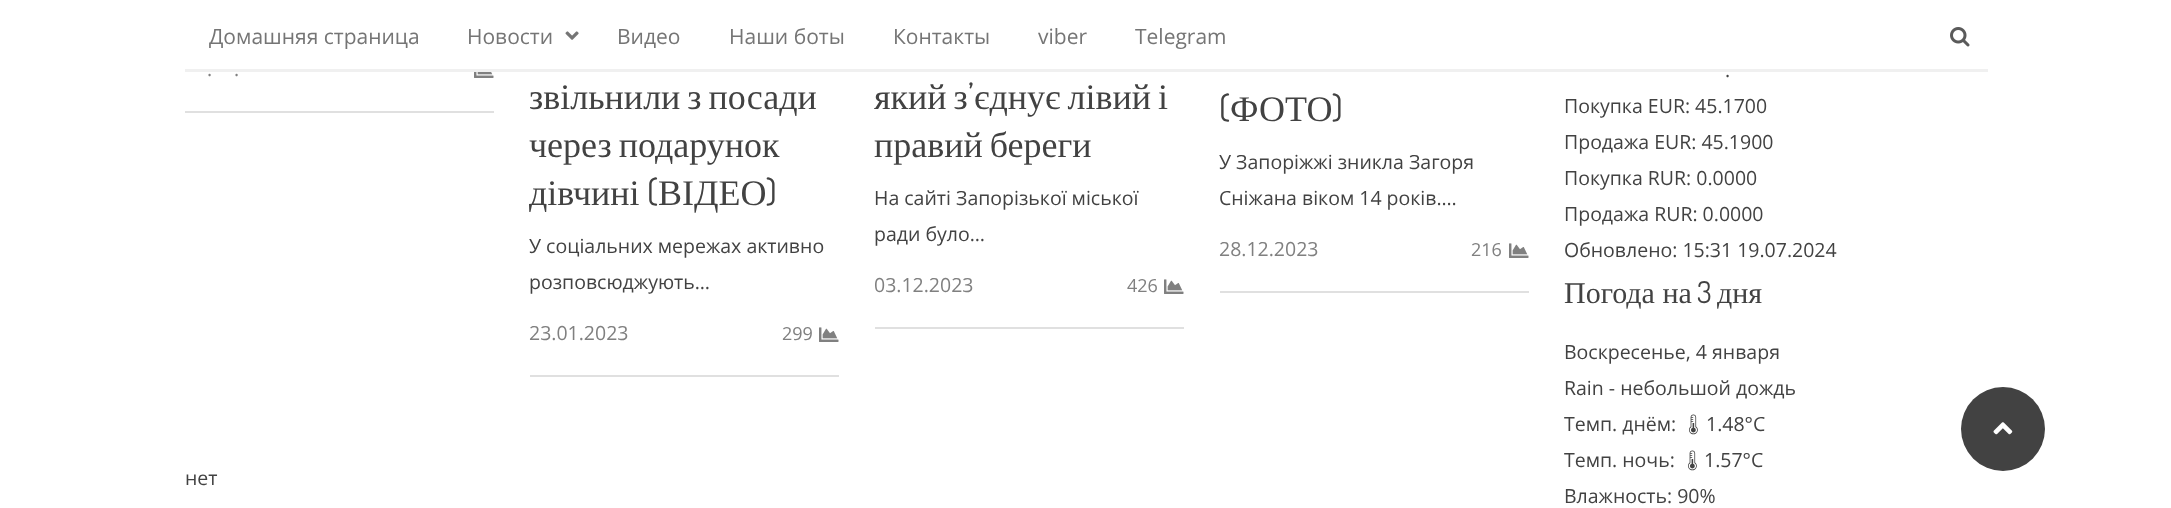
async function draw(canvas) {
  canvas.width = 2171;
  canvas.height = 508;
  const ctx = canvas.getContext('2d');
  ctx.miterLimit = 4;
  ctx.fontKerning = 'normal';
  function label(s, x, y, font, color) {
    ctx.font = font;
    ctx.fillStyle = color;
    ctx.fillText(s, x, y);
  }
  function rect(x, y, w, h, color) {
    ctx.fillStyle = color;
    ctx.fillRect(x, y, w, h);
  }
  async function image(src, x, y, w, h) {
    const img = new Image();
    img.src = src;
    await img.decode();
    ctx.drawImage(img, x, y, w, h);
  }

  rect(0, 0, 2171, 508, '#fff');
  rect(185, 69, 1803, 3, '#f0f0f0');
  label('Домашняя страница', 209, 44, '21px Open Sans', '#757575');
  label('Новости', 467, 44, '21px Open Sans', '#757575');
  await image('assets/img1.png', 565, 31, 14, 9);
  label('Видео', 617, 44, '21px Open Sans', '#757575');
  label('Наши боты', 729, 44, '21px Open Sans', '#757575');
  label('Контакты', 893, 44, '21px Open Sans', '#757575');
  label('viber', 1038, 44, '21px Open Sans', '#757575');
  label('Telegram', 1135, 44, '21px Open Sans', '#757575');
  await image('assets/img2.png', 1950, 27, 20, 20);
  label('.', 207, 76, '19.5px Open Sans', '#808080');
  label('.', 234, 76, '19.5px Open Sans', '#808080');
  await image('assets/img3.png', 474, 72, 20, 6);
  rect(185, 111, 309, 2, '#e0e0e0');
  ctx.wordSpacing = '-2px';
  label('звільнили з посади', 529, 109, '36px Liberation Serif', '#424242');
  label('через подарунок', 529, 157, '36px Liberation Serif', '#424242');
  ctx.wordSpacing = '0px';
  label('дівчині', 529, 205, '36px Liberation Serif', '#424242');
  label('(', 647, 205, '36px Dosis', '#424242');
  label('ВІДЕО', 658, 205, '36px Liberation Serif', '#424242');
  label(')', 766, 205, '36px Dosis', '#424242');
  label('У соціальних мережах активно', 529, 253, '19.5px Open Sans', '#424242');
  label('розповсюджують…', 529, 289, '19.5px Open Sans', '#424242');
  label('23.01.2023', 529, 340, '19.5px Open Sans', '#808080');
  label('299', 782, 340, '18px Open Sans', '#808080');
  await image('assets/img4.png', 819, 327, 20, 15);
  rect(530, 375, 309, 2, '#e0e0e0');
  ctx.wordSpacing = '-2px';
  label('який з', 874, 109, '36px Liberation Serif', '#424242');
  ctx.wordSpacing = '0px';
  label('’', 968, 109, '36px Dosis', '#424242');
  ctx.wordSpacing = '-2px';
  label('єднує лівий і', 974, 109, '36px Liberation Serif', '#424242');
  label('правий береги', 874, 157, '36px Liberation Serif', '#424242');
  ctx.wordSpacing = '0px';
  label('На сайті Запорізької міської', 874, 205, '19.5px Open Sans', '#424242');
  label('ради було…', 874, 241, '19.5px Open Sans', '#424242');
  label('03.12.2023', 874, 292, '19.5px Open Sans', '#808080');
  label('426', 1127, 292, '18px Open Sans', '#808080');
  await image('assets/img4.png', 1164, 279, 20, 15);
  rect(875, 327, 309, 2, '#e0e0e0');
  label('(', 1219, 121, '36px Dosis', '#424242');
  label('ФОТО', 1230, 121, '36px Liberation Serif', '#424242');
  label(')', 1332, 121, '36px Dosis', '#424242');
  label('У Запоріжжі зникла Загоря', 1219, 169, '19.5px Open Sans', '#424242');
  label('Сніжана віком 14 років.…', 1219, 205, '19.5px Open Sans', '#424242');
  label('28.12.2023', 1219, 256, '19.5px Open Sans', '#808080');
  label('216', 1471, 256, '18px Open Sans', '#808080');
  await image('assets/img4.png', 1509, 243, 20, 15);
  rect(1220, 291, 309, 2, '#e0e0e0');
  label('нет', 185, 485, '19.5px Open Sans', '#424242');
  label('.', 1725, 77, '19.5px Open Sans', '#424242');
  label('Покупка EUR: 45.1700', 1564, 113, '19.5px Open Sans', '#424242');
  label('Продажа EUR: 45.1900', 1564, 149, '19.5px Open Sans', '#424242');
  label('Покупка RUR: 0.0000', 1564, 185, '19.5px Open Sans', '#424242');
  label('Продажа RUR: 0.0000', 1564, 221, '19.5px Open Sans', '#424242');
  label('Обновлено: 15:31 19.07.2024', 1564, 257, '19.5px Open Sans', '#424242');
  label('Погода на', 1564, 303, '30px Liberation Serif', '#424242');
  label('3', 1697, 303, '30px Dosis', '#424242');
  label('дня', 1717, 303, '30px Liberation Serif', '#424242');
  label('Воскресенье, 4 января', 1564, 359, '19.5px Open Sans', '#424242');
  label('Rain - небольшой дождь', 1564, 395, '19.5px Open Sans', '#424242');
  label('Темп. днём:', 1564, 431, '19.5px Open Sans', '#424242');
  label('🌡', 1681, 431, '19.5px Noto Emoji', '#424242');
  label('1.48°C', 1706, 431, '19.5px Open Sans', '#424242');
  label('Темп. ночь:', 1564, 467, '19.5px Open Sans', '#424242');
  label('🌡', 1680, 467, '19.5px Noto Emoji', '#424242');
  label('1.57°C', 1704, 467, '19.5px Open Sans', '#424242');
  label('Влажность: 90%', 1564, 503, '19.5px Open Sans', '#424242');
  ctx.beginPath();
  ctx.arc(2003, 429, 42, 0, 2 * Math.PI);
  ctx.fill();
  await image('assets/img5.png', 1993, 422, 20, 13);
}

draw(document.querySelector('canvas'));
